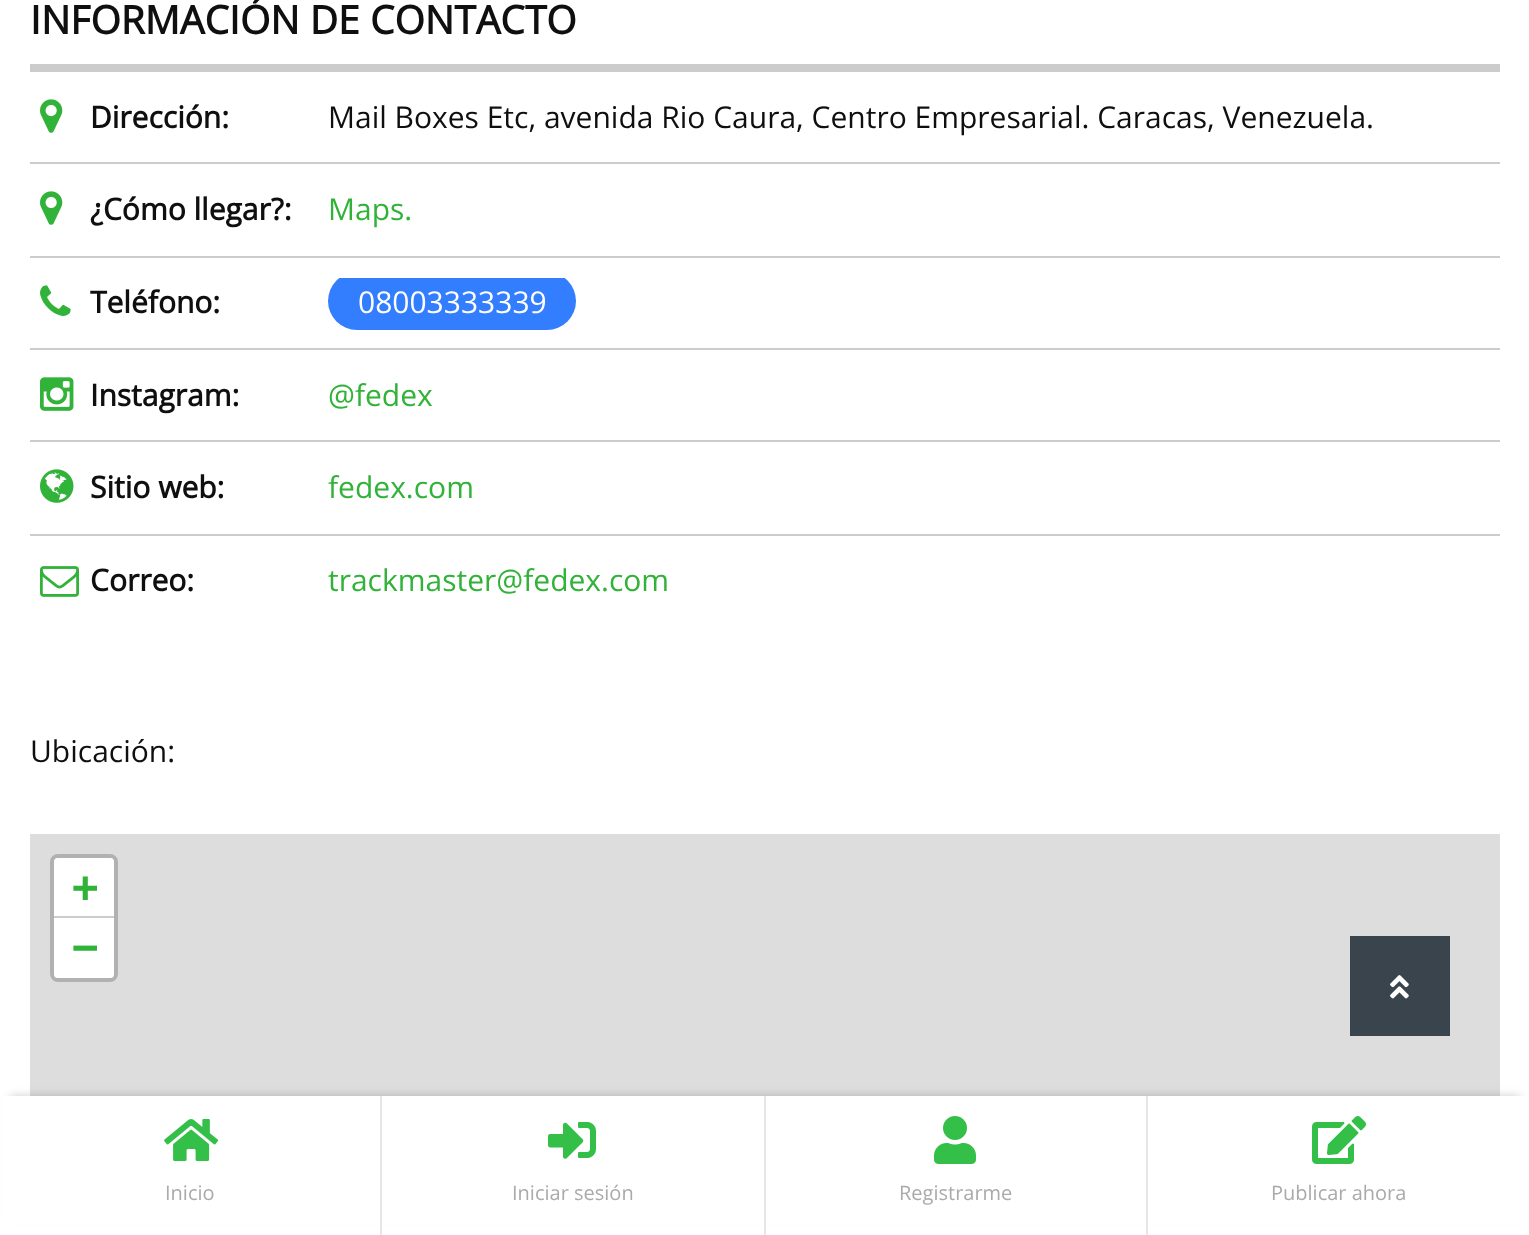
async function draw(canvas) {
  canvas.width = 1529;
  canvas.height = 1235;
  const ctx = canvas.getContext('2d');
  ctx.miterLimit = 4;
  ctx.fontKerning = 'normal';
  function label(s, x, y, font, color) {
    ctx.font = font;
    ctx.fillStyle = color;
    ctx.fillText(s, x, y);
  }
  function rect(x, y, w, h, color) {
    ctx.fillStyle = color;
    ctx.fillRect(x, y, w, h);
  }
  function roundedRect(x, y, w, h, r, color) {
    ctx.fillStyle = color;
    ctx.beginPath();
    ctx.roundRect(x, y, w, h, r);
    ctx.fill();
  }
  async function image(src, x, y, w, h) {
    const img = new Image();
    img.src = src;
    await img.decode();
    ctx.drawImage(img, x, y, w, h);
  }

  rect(0, 0, 1529, 1235, '#fff');
  rect(30, 64, 1470, 8, '#ccc');
  label('INFORMACIÓN DE CONTACTO', 30, 34, 'bold 39px Open Sans', '#0f0f0f');
  rect(30, 162, 1470, 2, '#ccc');
  await image('assets/img1.png', 40, 99, 23, 34);
  label('Dirección:', 90, 128, 'bold 30px Open Sans', '#0f0f0f');
  label('Mail Boxes Etc, avenida Rio Caura, Centro Empresarial. Caracas, Venezuela.', 328, 128, '30px Open Sans', '#0f0f0f');
  rect(30, 256, 1470, 2, '#ccc');
  await image('assets/img1.png', 40, 191, 23, 34);
  label('¿Cómo llegar?:', 90, 220, 'bold 30px Open Sans', '#0f0f0f');
  label('Maps.', 328, 220, '30px Open Sans', '#31b238');
  rect(30, 348, 1470, 2, '#ccc');
  await image('assets/img2.png', 40, 285, 31, 31);
  label('Teléfono:', 90, 313, 'bold 30px Open Sans', '#0f0f0f');
  ctx.save();
  ctx.beginPath();
  ctx.rect(30, 278, 1470, 70);
  ctx.clip();
  roundedRect(328, 272, 248, 58, 29, '#337dff');
  ctx.restore();
  label('08003333339', 358, 313, '30px Open Sans', '#fff');
  rect(30, 440, 1470, 2, '#ccc');
  await image('assets/img3.png', 40, 377, 34, 34);
  label('Instagram:', 90, 406, 'bold 30px Open Sans', '#0f0f0f');
  label('@fedex', 328, 406, '30px Open Sans', '#31b238');
  rect(30, 534, 1470, 2, '#ccc');
  await image('assets/img4.png', 40, 469, 34, 34);
  label('Sitio web:', 90, 498, 'bold 30px Open Sans', '#0f0f0f');
  label('fedex.com', 328, 498, '30px Open Sans', '#31b238');
  await image('assets/img5.png', 40, 566, 39, 31);
  label('Correo:', 90, 591, 'bold 30px Open Sans', '#0f0f0f');
  label('trackmaster@fedex.com', 328, 591, '30px Open Sans', '#31b238');
  label('Ubicación:', 30, 762, '30px Open Sans', '#0f0f0f');
  rect(30, 834, 1470, 262, '#ddd');
  ctx.beginPath();
  ctx.roundRect(52, 856, 64, 124, 6);
  ctx.strokeStyle = '#b1b1b1';
  ctx.lineWidth = 4;
  ctx.stroke();
  ctx.fillStyle = '#fff';
  ctx.beginPath();
  ctx.roundRect(54, 858, 60, 60, [4, 4, 0, 0]);
  ctx.fill();
  rect(54, 916, 60, 2, '#ccc');
  label('+', 72, 902, 'bold 44px DejaVu Sans Mono', '#31b238');
  ctx.fillStyle = '#fff';
  ctx.beginPath();
  ctx.roundRect(54, 918, 60, 60, [0, 0, 4, 4]);
  ctx.fill();
  label('−', 72, 962, 'bold 44px DejaVu Sans Mono', '#31b238');
  rect(1350, 936, 100, 100, '#39444c');
  await image('assets/img6.png', 1390, 975, 19, 24);
  ctx.fillStyle = '#00000033';
  ctx.filter = 'blur(5px)';
  ctx.beginPath();
  ctx.rect(10, 1096, 1510, 120);
  ctx.fill();
  ctx.filter = 'none';
  rect(2, 1096, 1526, 128, '#fff');
  rect(380, 1096, 2, 139, '#e6e6e6');
  await image('assets/img7.png', 164, 1119, 55, 42);
  label('Inicio', 165, 1200, '20px Open Sans', '#aaa');
  rect(764, 1096, 2, 139, '#e6e6e6');
  await image('assets/img8.png', 548, 1122, 48, 37);
  label('Iniciar sesión', 512, 1200, '20px Open Sans', '#aaa');
  rect(1146, 1096, 2, 139, '#e6e6e6');
  await image('assets/img9.png', 934, 1116, 42, 48);
  label('Registrarme', 899, 1200, '20px Open Sans', '#aaa');
  await image('assets/img10.png', 1312, 1116, 54, 48);
  label('Publicar ahora', 1271, 1200, '20px Open Sans', '#aaa');
}

draw(document.querySelector('canvas'));
